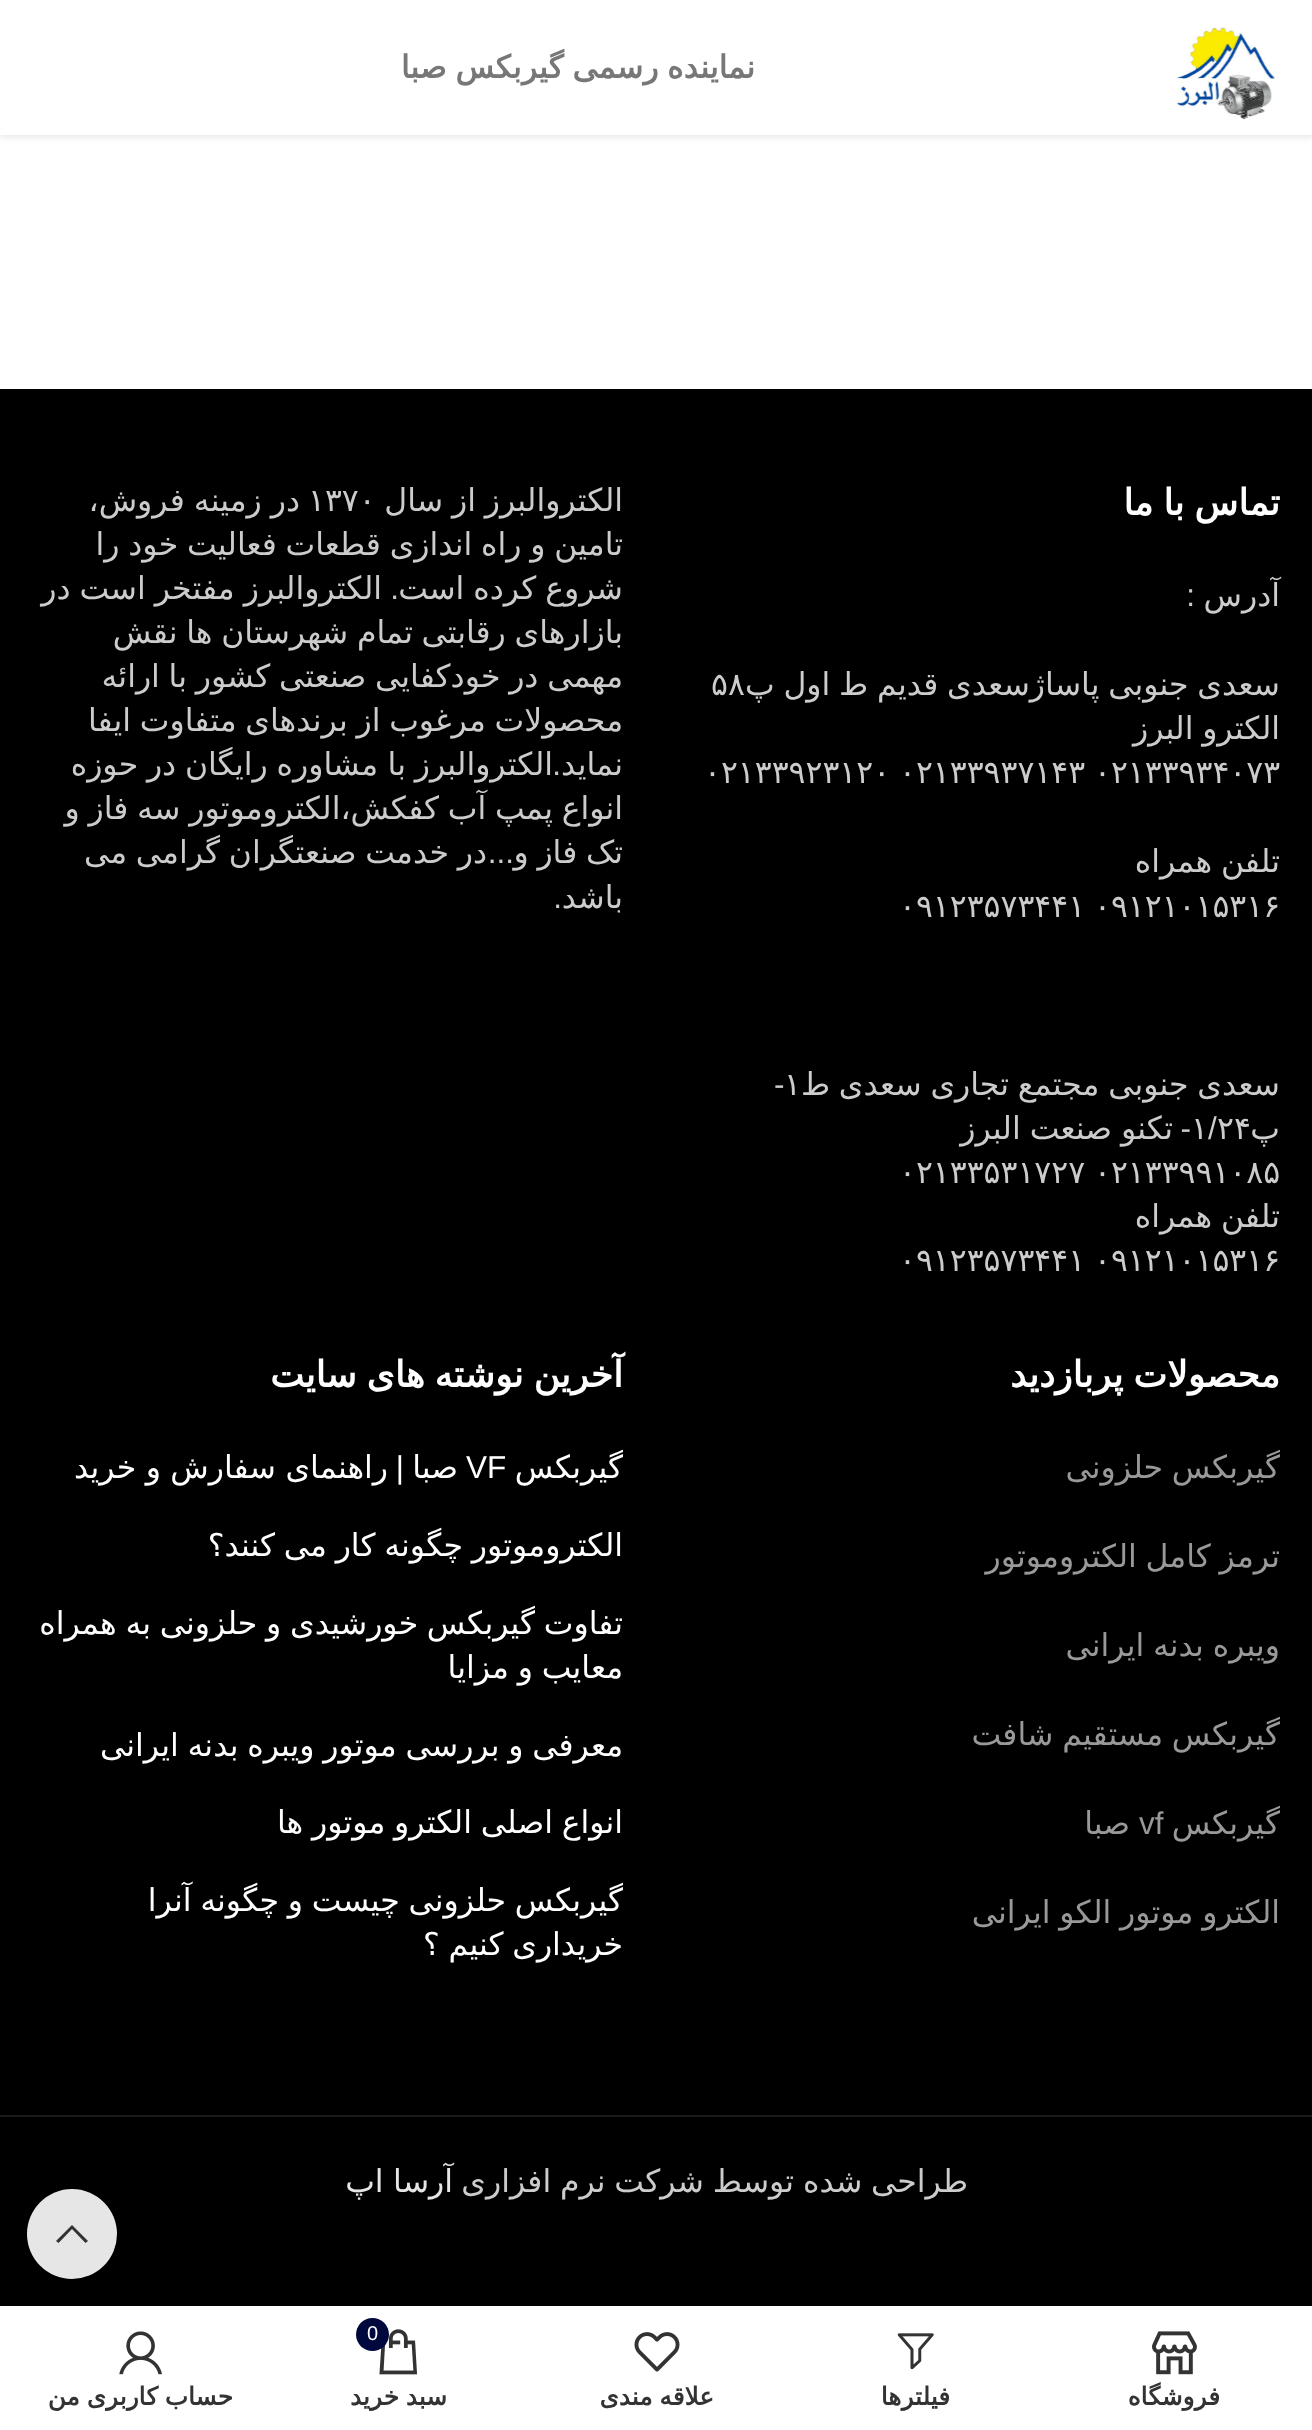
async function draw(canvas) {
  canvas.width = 1312;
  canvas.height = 2430;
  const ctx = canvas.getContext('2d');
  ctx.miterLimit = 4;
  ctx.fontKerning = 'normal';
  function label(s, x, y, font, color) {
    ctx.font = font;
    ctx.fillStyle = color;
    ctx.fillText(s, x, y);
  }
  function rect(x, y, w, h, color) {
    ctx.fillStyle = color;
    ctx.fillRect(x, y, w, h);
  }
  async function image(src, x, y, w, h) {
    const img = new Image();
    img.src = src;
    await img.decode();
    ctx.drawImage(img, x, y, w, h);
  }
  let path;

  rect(0, 0, 1312, 2430, '#fff');
  ctx.fillStyle = '#0000001a';
  ctx.filter = 'blur(3.5px)';
  ctx.beginPath();
  ctx.rect(0, 2, 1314, 135);
  ctx.fill();
  ctx.filter = 'none';
  rect(0, 0, 1312, 135, '#fff');
  await image('assets/img1.png', 1175, 26, 100, 94);
  ctx.wordSpacing = '-1.25px';
  ctx.direction = 'rtl';
  label('نماینده رسمی گیربکس صبا', 755, 78, 'bold 31.5px DejaVu Sans', '#777');
  rect(0, 389, 1312, 1917, '#000');
  ctx.wordSpacing = '-1.5px';
  label('تماس با ما', 1280, 515, 'bold 36px DejaVu Sans', '#fff');
  ctx.wordSpacing = '0px';
  label('آدرس', 1280, 606, '31.5px DejaVu Sans', '#ccc');
  label(':', 1195, 606, '31.5px Liberation Sans', '#ccc');
  ctx.wordSpacing = '-1.25px';
  label('سعدی جنوبی پاساژسعدی قدیم ط اول پ', 1280, 695, '31.5px DejaVu Sans', '#ccc');
  ctx.wordSpacing = '0px';
  ctx.direction = 'ltr';
  label('۵۸', 711, 695, '31.5px DejaVu Sans', '#ccc');
  ctx.wordSpacing = '-1.25px';
  ctx.direction = 'rtl';
  label('الکترو البرز', 1280, 739, '31.5px DejaVu Sans', '#ccc');
  ctx.wordSpacing = '0px';
  ctx.direction = 'ltr';
  label('۰۲۱۳۳۹۳۴۰۷۳', 1094, 783, '31.5px DejaVu Sans', '#ccc');
  label('۰۲۱۳۳۹۳۷۱۴۳', 899, 783, '31.5px DejaVu Sans', '#ccc');
  label('۰۲۱۳۳۹۲۳۱۲۰', 704, 783, '31.5px DejaVu Sans', '#ccc');
  ctx.wordSpacing = '-1.25px';
  ctx.direction = 'rtl';
  label('تلفن همراه', 1280, 872, '31.5px DejaVu Sans', '#ccc');
  ctx.wordSpacing = '0px';
  ctx.direction = 'ltr';
  label('۰۹۱۲۱۰۱۵۳۱۶', 1094, 917, '31.5px DejaVu Sans', '#ccc');
  label('۰۹۱۲۳۵۷۳۴۴۱', 899, 917, '31.5px DejaVu Sans', '#ccc');
  ctx.wordSpacing = '-1.25px';
  ctx.direction = 'rtl';
  label('سعدی جنوبی مجتمع تجاری سعدی ط', 1280, 1095, '31.5px DejaVu Sans', '#ccc');
  ctx.wordSpacing = '0px';
  ctx.direction = 'ltr';
  label('۱', 784, 1095, '31.5px DejaVu Sans', '#ccc');
  label('-', 774, 1095, '31.5px Liberation Sans', '#ccc');
  ctx.direction = 'rtl';
  label('پ', 1280, 1139, '31.5px DejaVu Sans', '#ccc');
  ctx.direction = 'ltr';
  label('۲۴', 1217, 1139, '31.5px DejaVu Sans', '#ccc');
  label('/', 1208, 1139, '31.5px Liberation Sans', '#ccc');
  label('۱', 1191, 1139, '31.5px DejaVu Sans', '#ccc');
  ctx.direction = 'rtl';
  label('-', 1191, 1139, '31.5px Liberation Sans', '#ccc');
  ctx.wordSpacing = '-1px';
  label('تکنو صنعت البرز', 1173, 1139, '31.5px DejaVu Sans', '#ccc');
  ctx.wordSpacing = '0px';
  ctx.direction = 'ltr';
  label('۰۲۱۳۳۹۹۱۰۸۵', 1094, 1183, '31.5px DejaVu Sans', '#ccc');
  label('۰۲۱۳۳۵۳۱۷۲۷', 899, 1183, '31.5px DejaVu Sans', '#ccc');
  ctx.wordSpacing = '-1.25px';
  ctx.direction = 'rtl';
  label('تلفن همراه', 1280, 1227, '31.5px DejaVu Sans', '#ccc');
  ctx.wordSpacing = '0px';
  ctx.direction = 'ltr';
  label('۰۹۱۲۱۰۱۵۳۱۶', 1094, 1271, '31.5px DejaVu Sans', '#ccc');
  label('۰۹۱۲۳۵۷۳۴۴۱', 899, 1271, '31.5px DejaVu Sans', '#ccc');
  ctx.wordSpacing = '-1.25px';
  ctx.direction = 'rtl';
  label('الکتروالبرز از سال', 623, 511, '31.5px DejaVu Sans', '#ccc');
  ctx.wordSpacing = '0px';
  ctx.direction = 'ltr';
  label('۱۳۷۰', 308, 511, '31.5px DejaVu Sans', '#ccc');
  ctx.wordSpacing = '-1px';
  ctx.direction = 'rtl';
  label('در زمینه فروش،', 300, 511, '31.5px DejaVu Sans', '#ccc');
  ctx.wordSpacing = '-1.25px';
  label('تامین و راه اندازی قطعات فعالیت خود را', 623, 555, '31.5px DejaVu Sans', '#ccc');
  ctx.wordSpacing = '-1px';
  label('شروع کرده است', 623, 599, '31.5px DejaVu Sans', '#ccc');
  ctx.wordSpacing = '0px';
  label('.', 399, 599, '31.5px Liberation Sans', '#ccc');
  ctx.wordSpacing = '-1px';
  label('الکتروالبرز مفتخر است در', 382, 599, '31.5px DejaVu Sans', '#ccc');
  ctx.wordSpacing = '-1.25px';
  label('بازارهای رقابتی', 623, 643, '31.5px DejaVu Sans', '#ccc');
  label('تمام شهرستان ها نقش', 413, 643, '31.5px DejaVu Sans', '#ccc');
  label('مهمی در خودکفایی صنعتی کشور با ارائه', 623, 687, '31.5px DejaVu Sans', '#ccc');
  label('محصولات مرغوب از برندهای متفاوت ایفا', 623, 731, '31.5px DejaVu Sans', '#ccc');
  ctx.wordSpacing = '0px';
  label('نماید', 623, 775, '31.5px DejaVu Sans', '#ccc');
  label('.', 561, 775, '31.5px Liberation Sans', '#ccc');
  ctx.wordSpacing = '-1.25px';
  label('الکتروالبرز با', 553, 775, '31.5px DejaVu Sans', '#ccc');
  label('مشاوره رایگان در حوزه', 378, 775, '31.5px DejaVu Sans', '#ccc');
  label('انواع پمپ آب کفکش،الکتروموتور سه فاز و', 623, 819, '31.5px DejaVu Sans', '#ccc');
  label('تک فاز و', 623, 863, '31.5px DejaVu Sans', '#ccc');
  label('در خدمت صنعتگران گرامی می', 487, 863, '31.5px DejaVu Sans', '#ccc');
  ctx.wordSpacing = '0px';
  label('...', 514, 863, '31.5px Liberation Sans', '#ccc');
  label('باشد', 623, 908, '31.5px DejaVu Sans', '#ccc');
  label('.', 562, 908, '31.5px Liberation Sans', '#ccc');
  ctx.wordSpacing = '-1.5px';
  label('محصولات پربازدید', 1280, 1387, 'bold 36px DejaVu Sans', '#fff');
  ctx.wordSpacing = '-1.25px';
  label('گیربکس حلزونی', 1280, 1478, '31.5px DejaVu Sans', '#999');
  label('ترمز کامل الکتروموتور', 1280, 1567, '31.5px DejaVu Sans', '#999');
  label('ویبره بدنه ایرانی', 1280, 1656, '31.5px DejaVu Sans', '#999');
  label('گیربکس مستقیم شافت', 1280, 1745, '31.5px DejaVu Sans', '#999');
  ctx.wordSpacing = '0px';
  label('گیربکس', 1280, 1834, '31.5px DejaVu Sans', '#999');
  ctx.direction = 'ltr';
  label('vf', 1139, 1834, '31.5px Liberation Sans', '#999');
  ctx.direction = 'rtl';
  label('صبا', 1130, 1834, '31.5px DejaVu Sans', '#999');
  ctx.wordSpacing = '-1.25px';
  label('الکترو موتور الکو ایرانی', 1280, 1923, '31.5px DejaVu Sans', '#999');
  ctx.wordSpacing = '-1.5px';
  label('آخرین نوشته های سایت', 623, 1387, 'bold 36px DejaVu Sans', '#fff');
  ctx.wordSpacing = '0px';
  label('گیربکس', 623, 1478, '31.5px DejaVu Sans', '#fff');
  ctx.direction = 'ltr';
  label('VF', 466, 1478, '31.5px Liberation Sans', '#fff');
  ctx.direction = 'rtl';
  label('صبا', 458, 1478, '31.5px DejaVu Sans', '#fff');
  label('|', 404, 1478, '31.5px Liberation Sans', '#fff');
  ctx.wordSpacing = '-0.5px';
  label('راهنمای سفارش و خرید', 388, 1478, '31.5px DejaVu Sans', '#fff');
  ctx.wordSpacing = '-1.25px';
  label('الکتروموتور چگونه کار می کنند؟', 623, 1556, '31.5px DejaVu Sans', '#fff');
  label('تفاوت گیربکس خورشیدی و حلزونی به همراه', 623, 1634, '31.5px DejaVu Sans', '#fff');
  label('معایب و مزایا', 623, 1678, '31.5px DejaVu Sans', '#fff');
  label('معرفی و بررسی موتور ویبره بدنه ایرانی', 623, 1756, '31.5px DejaVu Sans', '#fff');
  label('انواع اصلی الکترو موتور ها', 623, 1833, '31.5px DejaVu Sans', '#fff');
  label('گیربکس حلزونی چیست و چگونه آنرا', 623, 1911, '31.5px DejaVu Sans', '#fff');
  label('خریداری کنیم ؟', 623, 1955, '31.5px DejaVu Sans', '#fff');
  rect(0, 2115, 1312, 2, '#1a1a1a');
  label('طراحی شده توسط شرکت نرم افزاری', 968, 2192, '31.5px DejaVu Sans', '#ccc');
  ctx.wordSpacing = '-0.5px';
  label('آرسا اپ', 453, 2192, '31.5px DejaVu Sans', '#e6e6e6');
  ctx.beginPath();
  ctx.arc(72, 2234, 45, 0, 2 * Math.PI);
  ctx.fill();
  ctx.fillStyle = '#333';
  path = new Path2D('M72 2225L88 2241L85.5 2243L72 2229L58.5 2243L56 2241Z');
  ctx.fill(path);
  ctx.fillStyle = '#0000001f';
  ctx.filter = 'blur(10px)';
  ctx.beginPath();
  ctx.rect(0, 2306, 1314, 124);
  ctx.fill();
  ctx.filter = 'none';
  rect(0, 2306, 1312, 124, '#fff');
  await image('assets/img2.png', 1152, 2331, 45, 44);
  ctx.wordSpacing = '0px';
  label('فروشگاه', 1220, 2405, 'bold 24.75px DejaVu Sans', '#333');
  await image('assets/img3.png', 897, 2333, 37, 37);
  label('فیلترها', 950, 2405, 'bold 24.75px DejaVu Sans', '#333');
  await image('assets/img4.png', 634, 2332, 46, 40);
  ctx.wordSpacing = '-1px';
  label('علاقه مندی', 714, 2405, 'bold 24.75px DejaVu Sans', '#333');
  await image('assets/img5.png', 379, 2329, 38, 46);
  ctx.fillStyle = '#00083d';
  ctx.beginPath();
  ctx.arc(372.5, 2334.5, 16.5, 0, 2 * Math.PI);
  ctx.fill();
  ctx.wordSpacing = '0px';
  ctx.direction = 'ltr';
  label('0', 367, 2340, '20px Liberation Sans', '#fff');
  ctx.wordSpacing = '-1px';
  ctx.direction = 'rtl';
  label('سبد خرید', 447, 2405, 'bold 24.75px DejaVu Sans', '#333');
  await image('assets/img6.png', 119, 2331, 43, 44);
  label('حساب کاربری من', 233, 2405, 'bold 24.75px DejaVu Sans', '#333');
}

draw(document.querySelector('canvas'));
